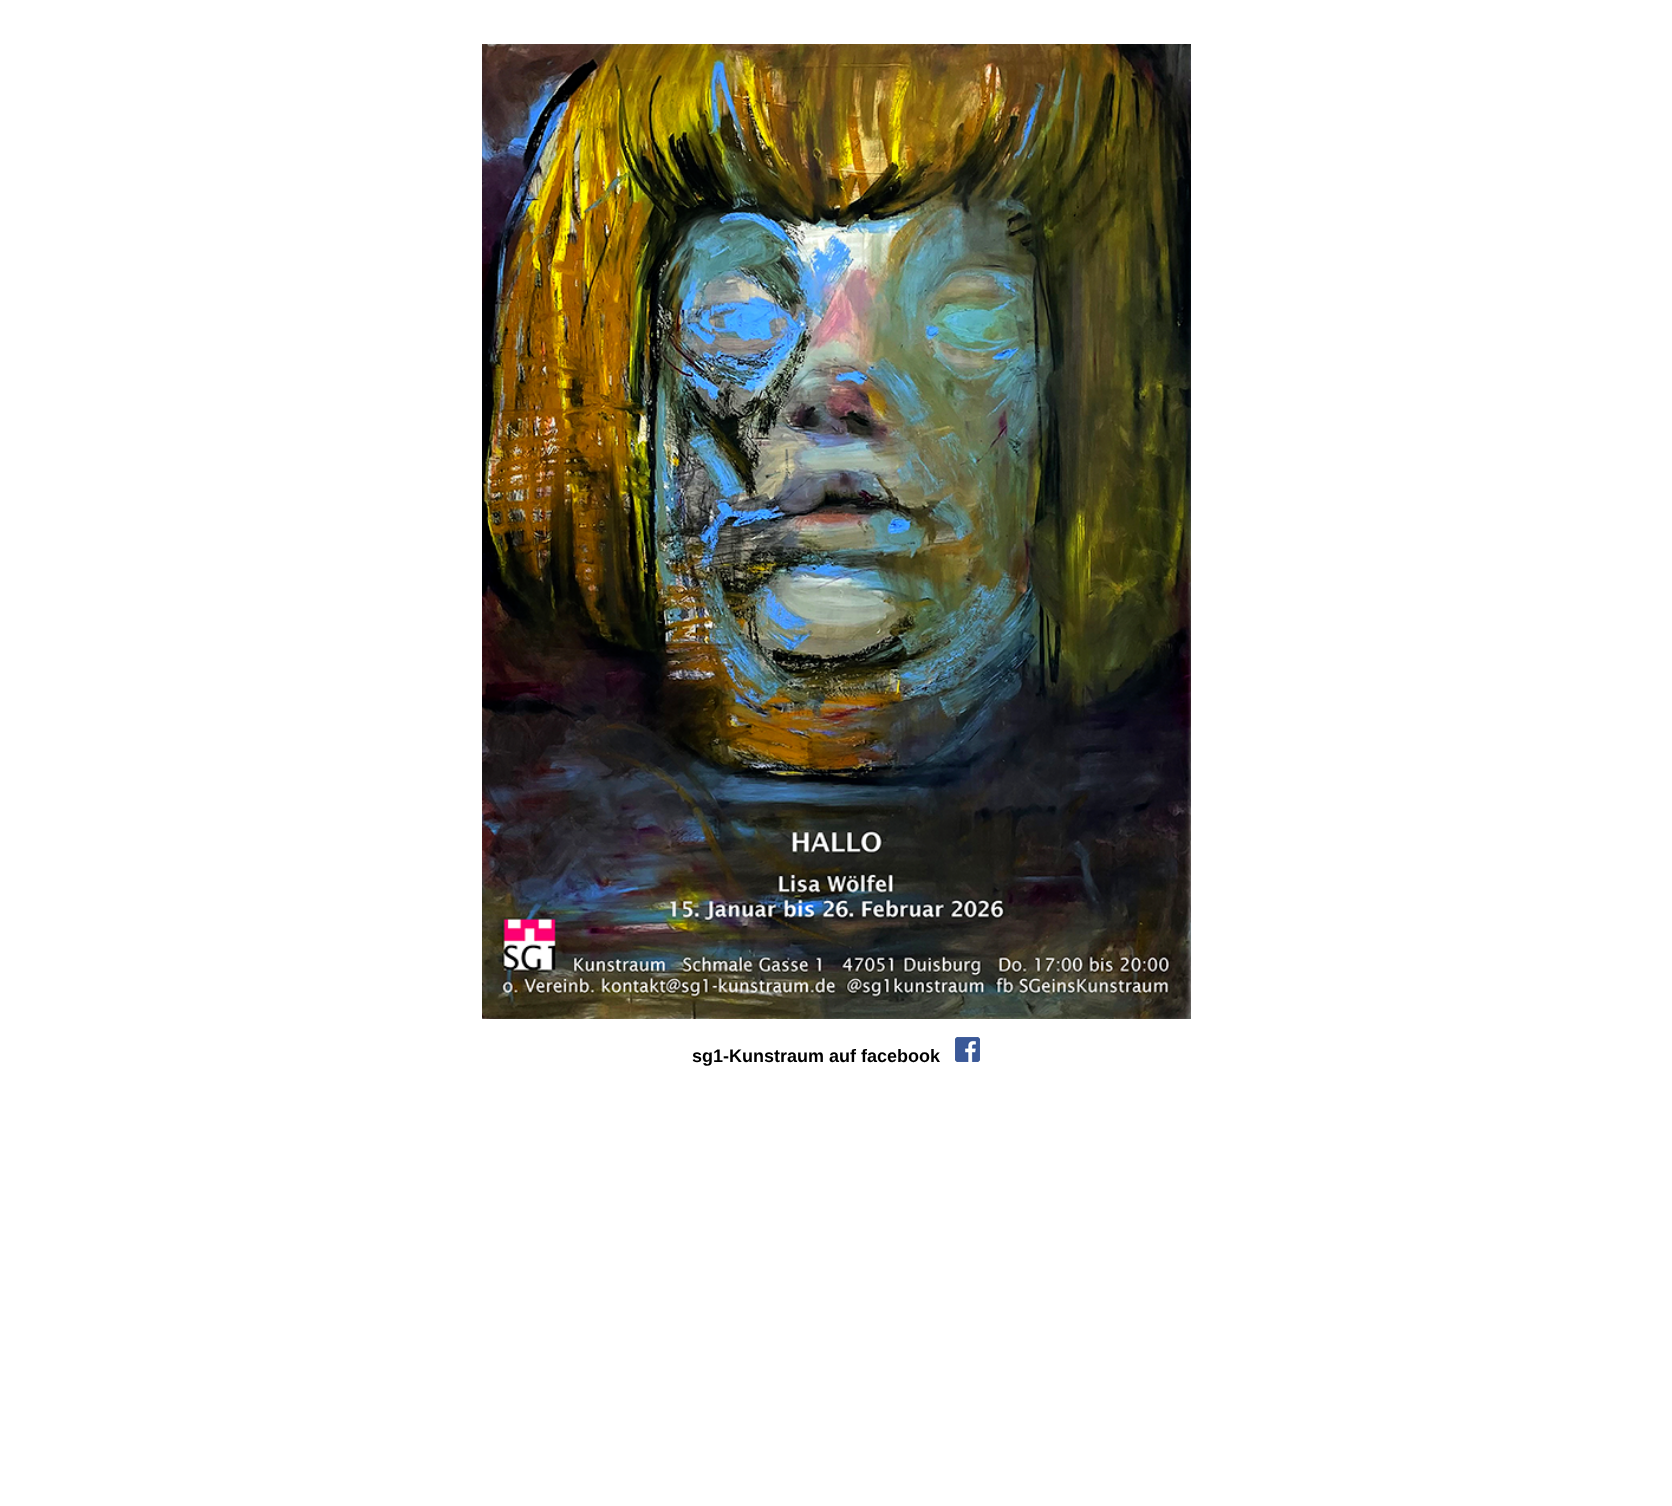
async function draw(canvas) {
  canvas.width = 1672;
  canvas.height = 1506;
  const ctx = canvas.getContext('2d');
  ctx.miterLimit = 4;
  ctx.fontKerning = 'normal';
  function label(s, x, y, font, color) {
    ctx.font = font;
    ctx.fillStyle = color;
    ctx.fillText(s, x, y);
  }
  function rect(x, y, w, h, color) {
    ctx.fillStyle = color;
    ctx.fillRect(x, y, w, h);
  }
  async function image(src, x, y, w, h) {
    const img = new Image();
    img.src = src;
    await img.decode();
    ctx.drawImage(img, x, y, w, h);
  }

  rect(0, 0, 1672, 1506, '#fff');
  await image('assets/img1.png', 482, 44, 709, 975);
  label('sg1-Kunstraum auf facebook', 692, 1062, 'bold 18px Liberation Sans', '#000');
  await image('assets/img2.png', 955, 1037, 25, 25);
}

draw(document.querySelector('canvas'));
